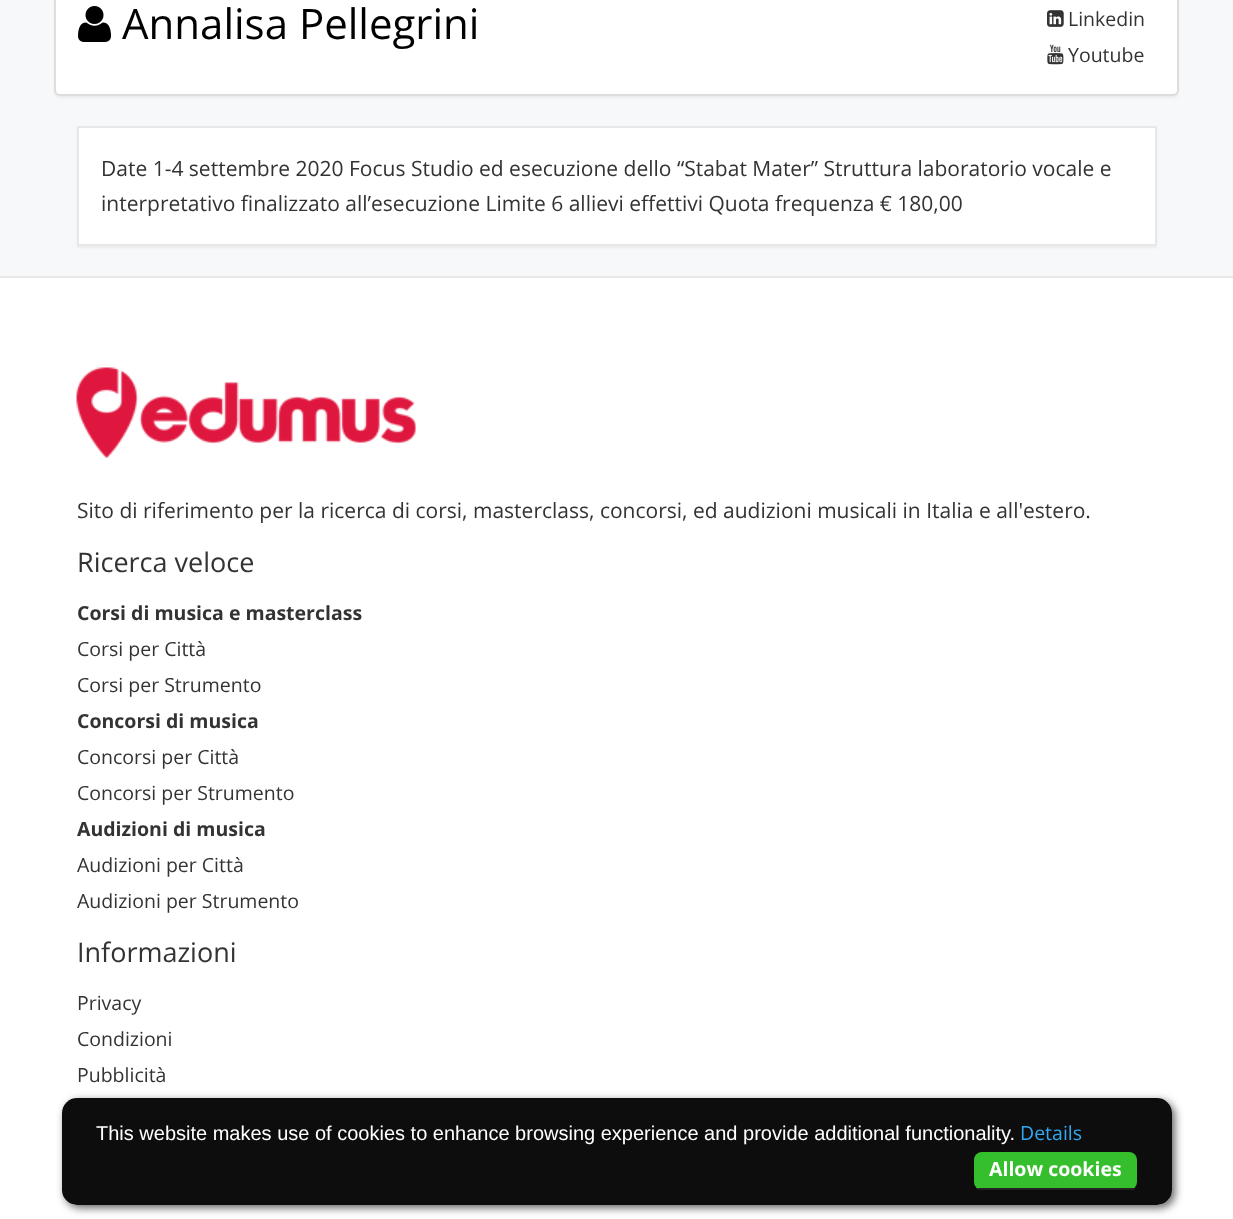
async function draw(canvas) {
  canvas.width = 1233;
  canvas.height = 1219;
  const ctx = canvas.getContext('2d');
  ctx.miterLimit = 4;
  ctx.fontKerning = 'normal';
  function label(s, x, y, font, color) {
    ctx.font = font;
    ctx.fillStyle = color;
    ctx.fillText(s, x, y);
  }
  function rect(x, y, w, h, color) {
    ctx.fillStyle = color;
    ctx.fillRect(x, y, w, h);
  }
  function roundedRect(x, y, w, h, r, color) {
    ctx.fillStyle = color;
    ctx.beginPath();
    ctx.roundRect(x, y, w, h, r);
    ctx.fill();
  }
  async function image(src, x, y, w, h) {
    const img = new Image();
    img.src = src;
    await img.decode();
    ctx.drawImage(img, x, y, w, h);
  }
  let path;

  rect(0, 0, 1233, 1219, '#f7f8f9');
  ctx.fillStyle = '#0000000d';
  ctx.filter = 'blur(1px)';
  ctx.beginPath();
  ctx.roundRect(54, -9, 1125, 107, 6);
  ctx.fill();
  ctx.filter = 'none';
  ctx.fillStyle = '#fff';
  ctx.beginPath();
  ctx.roundRect(55, -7, 1123, 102, 5);
  ctx.fill();
  ctx.strokeStyle = '#ddd';
  ctx.lineWidth = 2;
  ctx.stroke();
  await image('assets/img1.png', 78, 6, 33, 36);
  label('Annalisa Pellegrini', 122, 39, '42px Open Sans', '#000');
  await image('assets/img2.png', 1047, 10, 17, 17);
  label('Linkedin', 1068, 26, '19.5px Open Sans', '#333');
  await image('assets/img3.png', 1047, 44, 17, 21);
  label('Youtube', 1068, 62, '19.5px Open Sans', '#333');
  ctx.fillStyle = '#0000000d';
  ctx.filter = 'blur(1px)';
  ctx.beginPath();
  ctx.rect(77, 128, 1080, 120);
  ctx.fill();
  ctx.filter = 'none';
  ctx.fillStyle = '#fff';
  ctx.beginPath();
  ctx.rect(78, 127, 1078, 118);
  ctx.fill();
  ctx.strokeStyle = '#e8e8e8';
  ctx.stroke();
  label('Date 1-4 settembre 2020 Focus Studio ed esecuzione dello “Stabat Mater” Struttura laboratorio vocale e', 101, 176, '21px Open Sans', '#333');
  label('interpretativo finalizzato all’esecuzione Limite 6 allievi effettivi Quota frequenza € 180,00', 101, 211, '21px Open Sans', '#333');
  rect(0, 278, 1233, 941, '#fff');
  rect(0, 276, 1233, 2, '#e8e8e8');
  await image('assets/img4.png', 76, 367, 340, 91);
  label('Sito di riferimento per la ricerca di corsi, masterclass, concorsi, ed audizioni musicali in Italia e all\'estero.', 77, 518, '21px Open Sans', '#333');
  label('Ricerca veloce', 77, 572, '27px Open Sans', '#333');
  label('Corsi di musica e masterclass', 77, 620, 'bold 19.5px Open Sans', '#333');
  label('Corsi per Città', 77, 656, '19.5px Open Sans', '#333');
  label('Corsi per Strumento', 77, 692, '19.5px Open Sans', '#333');
  label('Concorsi di musica', 77, 728, 'bold 19.5px Open Sans', '#333');
  label('Concorsi per Città', 77, 764, '19.5px Open Sans', '#333');
  label('Concorsi per Strumento', 77, 800, '19.5px Open Sans', '#333');
  label('Audizioni di musica', 77, 836, 'bold 19.5px Open Sans', '#333');
  label('Audizioni per Città', 77, 872, '19.5px Open Sans', '#333');
  label('Audizioni per Strumento', 77, 908, '19.5px Open Sans', '#333');
  label('Informazioni', 77, 962, '27px Open Sans', '#333');
  label('Privacy', 77, 1010, '19.5px Open Sans', '#333');
  label('Condizioni', 77, 1046, '19.5px Open Sans', '#333');
  label('Pubblicità', 77, 1082, '19.5px Open Sans', '#333');
  ctx.save();
  path = new Path2D('M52 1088H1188V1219H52ZM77 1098H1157C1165.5 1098 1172 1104.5 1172 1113V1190C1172 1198.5 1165.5 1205 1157 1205H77C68.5 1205 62 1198.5 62 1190V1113C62 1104.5 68.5 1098 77 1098Z');
  ctx.clip(path, 'evenodd');
  ctx.fillStyle = '#00000099';
  ctx.filter = 'blur(4px)';
  ctx.beginPath();
  ctx.roundRect(65, 1101, 1110, 107, 15);
  ctx.fill();
  ctx.filter = 'none';
  ctx.restore();
  roundedRect(62, 1098, 1110, 107, 15, '#000000f2');
  label('This website makes use of cookies to enhance browsing experience and provide additional functionality.', 96, 1140, '20px Liberation Sans', '#fff');
  label('Details', 1020, 1140, '19.5px Open Sans', '#31a8f0');
  roundedRect(974, 1152, 163, 38, 8, '#36bf2d');
  rect(978, 1188, 156, 2, '#222');
  label('Allow cookies', 989, 1176, 'bold 19.5px Open Sans', '#fff');
}

draw(document.querySelector('canvas'));
